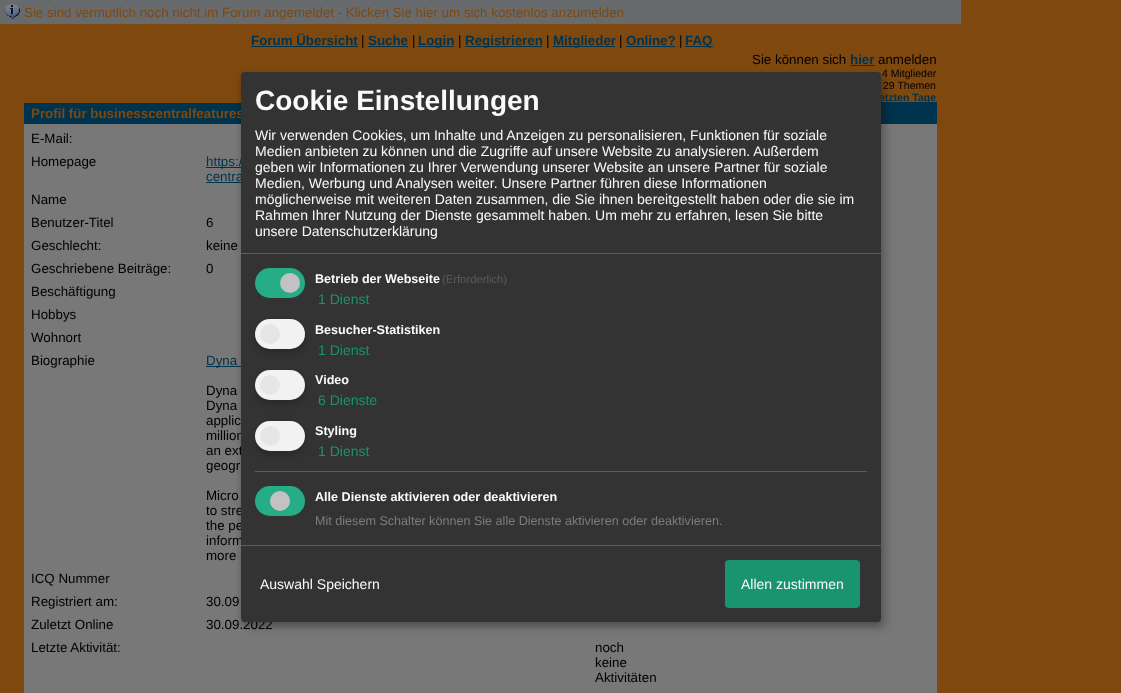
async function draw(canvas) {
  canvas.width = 1121;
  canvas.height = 693;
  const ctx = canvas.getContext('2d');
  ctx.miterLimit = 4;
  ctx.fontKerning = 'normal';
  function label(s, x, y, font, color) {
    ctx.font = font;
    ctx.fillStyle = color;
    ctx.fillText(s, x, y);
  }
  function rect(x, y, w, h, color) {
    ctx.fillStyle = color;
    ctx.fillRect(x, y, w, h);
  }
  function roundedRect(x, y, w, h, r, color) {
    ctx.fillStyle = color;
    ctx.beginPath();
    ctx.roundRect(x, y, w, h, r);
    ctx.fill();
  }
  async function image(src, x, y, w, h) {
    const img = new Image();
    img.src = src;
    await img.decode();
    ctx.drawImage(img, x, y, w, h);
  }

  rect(0, 0, 1121, 693, '#7f480f');
  rect(0, 0, 961, 24, '#676b6e');
  await image('assets/img1.png', 4, 4, 16, 15);
  label('Sie sind vermutlich noch nicht im Forum angemeldet - Klicken Sie hier um sich kostenlos anzumelden', 24, 17, '13.35px Liberation Sans', '#7f480f');
  label('Forum Übersicht', 251, 45, 'bold 13.35px Liberation Sans', '#00334d');
  rect(251, 46, 107, 1, '#00334d');
  label('|', 361, 45, '13.35px Liberation Sans', '#000');
  label('Suche', 368, 45, 'bold 13.35px Liberation Sans', '#00334d');
  rect(368, 46, 40, 1, '#00334d');
  label('|', 412, 45, '13.35px Liberation Sans', '#000');
  rect(418, 46, 36, 1, '#00334d');
  label('Login', 418, 45, 'bold 13.35px Liberation Sans', '#00334d');
  label('|', 458, 45, '13.35px Liberation Sans', '#000');
  rect(465, 46, 77, 1, '#00334d');
  label('Registrieren', 465, 45, 'bold 13.35px Liberation Sans', '#00334d');
  label('|', 546, 45, '13.35px Liberation Sans', '#000');
  rect(553, 46, 62, 1, '#00334d');
  label('Mitglieder', 553, 45, 'bold 13.35px Liberation Sans', '#00334d');
  label('|', 619, 45, '13.35px Liberation Sans', '#000');
  label('Online?', 626, 45, 'bold 13.35px Liberation Sans', '#00334d');
  rect(626, 46, 49, 1, '#00334d');
  label('|', 679, 45, '13.35px Liberation Sans', '#000');
  rect(685, 46, 28, 1, '#00334d');
  label('FAQ', 685, 45, 'bold 13.35px Liberation Sans', '#00334d');
  label('Sie können sich', 752, 64, '13.35px Liberation Sans', '#000');
  label('hier', 850, 64, 'bold 13.35px Liberation Sans', '#00334d');
  rect(850, 65, 25, 1, '#00334d');
  label('anmelden', 878, 64, '13.35px Liberation Sans', '#000');
  label('4 Mitglieder', 882, 77, '10.5px Liberation Sans', '#000');
  label('29 Themen', 883, 89, '10.5px Liberation Sans', '#000');
  rect(881, 102, 56, 1, '#00334d');
  rect(24, 103, 913, 21, '#00334d');
  label('etzten Tage', 879, 101, 'bold 10.5px Liberation Sans', '#00334d');
  label('Profil für businesscentralfeatures', 31, 118, 'bold 13.35px Liberation Sans', '#7f480f');
  rect(24, 124, 913, 569, '#787878');
  label('E-Mail:', 31, 143, '13.35px Liberation Sans', '#000');
  label('Homepage', 31, 166, '13.35px Liberation Sans', '#000');
  rect(206, 167, 35, 1, '#00334d');
  label('https:/', 206, 166, '13.35px Liberation Sans', '#00334d');
  label('centra', 206, 181, '13.35px Liberation Sans', '#00334d');
  rect(206, 182, 35, 1, '#00334d');
  label('Name', 31, 204, '13.35px Liberation Sans', '#000');
  label('Benutzer-Titel', 31, 227, '13.35px Liberation Sans', '#000');
  label('6', 206, 227, '13.35px Liberation Sans', '#000');
  label('Geschlecht:', 31, 250, '13.35px Liberation Sans', '#000');
  label('keine', 206, 250, '13.35px Liberation Sans', '#000');
  label('Geschriebene Beiträge:', 31, 273, '13.35px Liberation Sans', '#000');
  label('0', 206, 273, '13.35px Liberation Sans', '#000');
  label('Beschäftigung', 31, 296, '13.35px Liberation Sans', '#000');
  label('Hobbys', 31, 319, '13.35px Liberation Sans', '#000');
  label('Wohnort', 31, 342, '13.35px Liberation Sans', '#000');
  label('Biographie', 31, 365, '13.35px Liberation Sans', '#000');
  rect(206, 366, 35, 1, '#00334d');
  label('Dyna', 206, 365, '13.35px Liberation Sans', '#00334d');
  label('Dyna', 206, 395, '13.35px Liberation Sans', '#000');
  label('Dyna', 206, 410, '13.35px Liberation Sans', '#000');
  label('applic', 206, 425, '13.35px Liberation Sans', '#000');
  label('million', 206, 440, '13.35px Liberation Sans', '#000');
  label('an ext', 206, 455, '13.35px Liberation Sans', '#000');
  label('geogr', 206, 470, '13.35px Liberation Sans', '#000');
  label('Micro', 206, 500, '13.35px Liberation Sans', '#000');
  label('to stre', 206, 515, '13.35px Liberation Sans', '#000');
  label('the pe', 206, 530, '13.35px Liberation Sans', '#000');
  label('inform', 206, 545, '13.35px Liberation Sans', '#000');
  label('more', 206, 560, '13.35px Liberation Sans', '#000');
  label('ICQ Nummer', 31, 583, '13.35px Liberation Sans', '#000');
  label('Registriert am:', 31, 606, '13.35px Liberation Sans', '#000');
  label('30.09', 206, 606, '13.35px Liberation Sans', '#000');
  label('Zuletzt Online', 31, 629, '13.35px Liberation Sans', '#000');
  label('30.09.2022', 206, 629, '13.35px Liberation Sans', '#000');
  label('Letzte Aktivität:', 31, 652, '13.35px Liberation Sans', '#000');
  label('noch', 595, 652, '13.35px Liberation Sans', '#000');
  label('keine', 595, 667, '13.35px Liberation Sans', '#000');
  label('Aktivitäten', 595, 682, '13.35px Liberation Sans', '#000');
  ctx.fillStyle = '#00000030';
  ctx.filter = 'blur(5px)';
  ctx.beginPath();
  ctx.roundRect(246, 77, 640, 550, 4);
  ctx.fill();
  ctx.filter = 'none';
  ctx.fillStyle = '#00000033';
  ctx.filter = 'blur(3px)';
  ctx.beginPath();
  ctx.roundRect(241, 76, 640, 550, 4);
  ctx.fill();
  ctx.filter = 'none';
  roundedRect(241, 72, 640, 550, 4, '#333');
  rect(241, 253, 640, 1, '#5c5c5c');
  label('Cookie Einstellungen', 255, 110, 'bold 28px Liberation Sans', '#fafafa');
  label('Wir verwenden Cookies, um Inhalte und Anzeigen zu personalisieren, Funktionen für soziale', 255, 140, '14px Liberation Sans', '#fafafa');
  label('Medien anbieten zu können und die Zugriffe auf unsere Website zu analysieren. Außerdem', 255, 156, '14px Liberation Sans', '#fafafa');
  label('geben wir Informationen zu Ihrer Verwendung unserer Website an unsere Partner für soziale', 255, 172, '14px Liberation Sans', '#fafafa');
  label('Medien, Werbung und Analysen weiter. Unsere Partner führen diese Informationen', 255, 188, '14px Liberation Sans', '#fafafa');
  label('möglicherweise mit weiteren Daten zusammen, die Sie ihnen bereitgestellt haben oder die sie im', 255, 204, '14px Liberation Sans', '#fafafa');
  label('Rahmen Ihrer Nutzung der Dienste gesammelt haben. Um mehr zu erfahren, lesen Sie bitte', 255, 220, '14px Liberation Sans', '#fafafa');
  label('unsere Datenschutzerklärung', 255, 236, '14px Liberation Sans', '#fafafa');
  roundedRect(255, 268, 50, 30, 15, '#27ad85');
  ctx.fillStyle = '#c2c2c2';
  ctx.beginPath();
  ctx.arc(290, 283, 10, 0, 2 * Math.PI);
  ctx.fill();
  label('Betrieb der Webseite', 315, 283, 'bold 12.6px Liberation Sans', '#fafafa');
  label('(Erforderlich)', 442, 283, '11.25px Liberation Sans', '#5c5c5c');
  label('1 Dienst', 318, 304, '14px Liberation Sans', '#1a936f');
  ctx.fillStyle = '#00000033';
  ctx.filter = 'blur(3px)';
  ctx.beginPath();
  ctx.roundRect(255, 323, 50, 30, 15);
  ctx.fill();
  ctx.filter = 'none';
  roundedRect(255, 319, 50, 30, 15, '#f2f2f2');
  ctx.fillStyle = '#e6e6e6';
  ctx.beginPath();
  ctx.arc(270, 334, 10, 0, 2 * Math.PI);
  ctx.fill();
  label('Besucher-Statistiken', 315, 334, 'bold 12.6px Liberation Sans', '#fafafa');
  label('1 Dienst', 318, 355, '14px Liberation Sans', '#1a936f');
  ctx.fillStyle = '#00000033';
  ctx.filter = 'blur(3px)';
  ctx.beginPath();
  ctx.roundRect(255, 374, 50, 30, 15);
  ctx.fill();
  ctx.filter = 'none';
  roundedRect(255, 370, 50, 30, 15, '#f2f2f2');
  ctx.fillStyle = '#e6e6e6';
  ctx.beginPath();
  ctx.arc(270, 385, 10, 0, 2 * Math.PI);
  ctx.fill();
  label('Video', 315, 384, 'bold 12.6px Liberation Sans', '#fafafa');
  label('6 Dienste', 318, 405, '14px Liberation Sans', '#1a936f');
  ctx.fillStyle = '#00000033';
  ctx.filter = 'blur(3px)';
  ctx.beginPath();
  ctx.roundRect(255, 425, 50, 30, 15);
  ctx.fill();
  ctx.filter = 'none';
  roundedRect(255, 421, 50, 30, 15, '#f2f2f2');
  ctx.fillStyle = '#e6e6e6';
  ctx.beginPath();
  ctx.arc(270, 436, 10, 0, 2 * Math.PI);
  ctx.fill();
  label('Styling', 315, 435, 'bold 12.6px Liberation Sans', '#fafafa');
  label('1 Dienst', 318, 456, '14px Liberation Sans', '#1a936f');
  rect(255, 471, 612, 1, '#5c5c5c');
  roundedRect(255, 486, 50, 30, 15, '#27ad85');
  ctx.fillStyle = '#c2c2c2';
  ctx.beginPath();
  ctx.arc(280, 501, 10, 0, 2 * Math.PI);
  ctx.fill();
  label('Alle Dienste aktivieren oder deaktivieren', 315, 501, 'bold 12.6px Liberation Sans', '#fafafa');
  label('Mit diesem Schalter können Sie alle Dienste aktivieren oder deaktivieren.', 315, 525, '12.6px Liberation Sans', '#7c7c7c');
  rect(241, 545, 640, 1, '#5c5c5c');
  label('Auswahl Speichern', 260, 589, '14px Liberation Sans', '#fafafa');
  roundedRect(725, 560, 135, 48, 4, '#1a936f');
  label('Allen zustimmen', 741, 589, '14px Liberation Sans', '#fafafa');
}

draw(document.querySelector('canvas'));
